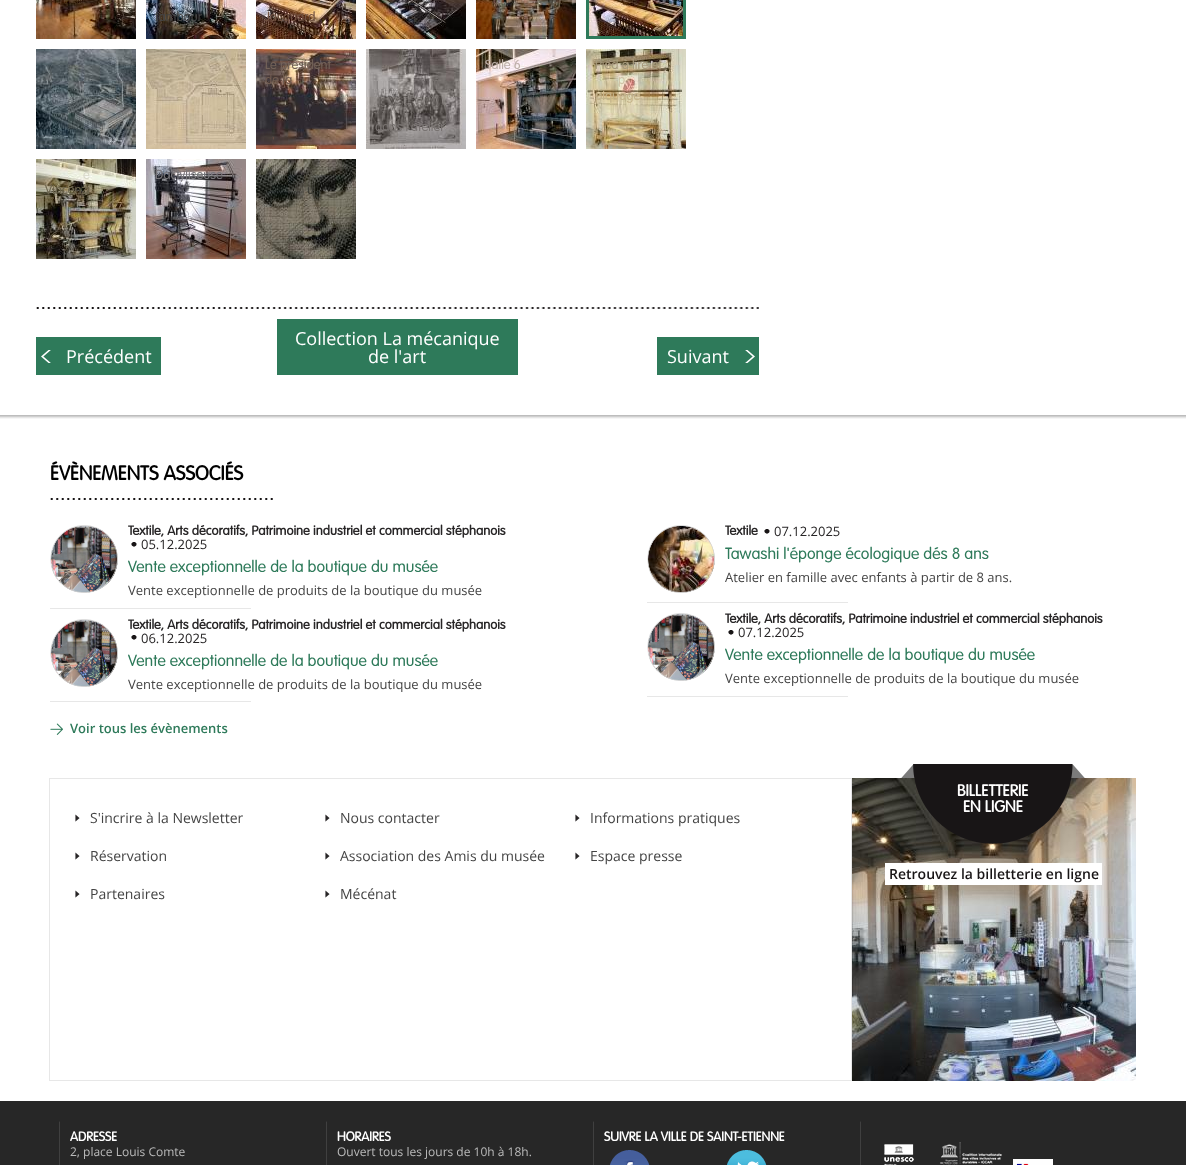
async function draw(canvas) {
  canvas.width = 1186;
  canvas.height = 1165;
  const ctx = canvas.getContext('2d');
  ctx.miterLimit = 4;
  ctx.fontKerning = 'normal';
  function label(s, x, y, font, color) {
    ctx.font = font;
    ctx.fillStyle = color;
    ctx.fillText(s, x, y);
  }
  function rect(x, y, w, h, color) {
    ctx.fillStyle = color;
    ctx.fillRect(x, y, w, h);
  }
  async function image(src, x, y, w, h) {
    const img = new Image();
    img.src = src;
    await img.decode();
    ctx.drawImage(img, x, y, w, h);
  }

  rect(0, 0, 1186, 1165, '#fff');
  await image('assets/img1.png', 36, 307, 723, 2);
  await image('assets/img2.png', 36, 0, 100, 39);
  await image('assets/img3.png', 146, 0, 100, 39);
  label('tambour', 155, 21, '300 13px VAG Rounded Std', '#444');
  await image('assets/img4.png', 256, 0, 100, 39);
  label('Jacquard', 265, 21, '300 13px VAG Rounded Std', '#725342');
  await image('assets/img5.png', 366, 0, 100, 39);
  await image('assets/img6.png', 476, 0, 100, 39);
  await image('assets/img7.png', 589, 0, 94, 36);
  ctx.strokeStyle = '#2e7a5a';
  ctx.lineWidth = 3;
  ctx.strokeRect(587.5, -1.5, 97, 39);
  await image('assets/img8.png', 36, 49, 100, 100);
  await image('assets/img9.png', 256, 49, 100, 100);
  label('Le président', 265, 69, '300 13px VAG Rounded Std', '#746359');
  label('de la', 265, 84, '300 13px VAG Rounded Std', '#725d51');
  label('\'', 272, 146, '300 13px VAG Rounded Std', '#674f45');
  await image('assets/img10.png', 476, 49, 100, 100);
  label('Salle 6', 485, 69, '300 13px VAG Rounded Std', '#beb0aa');
  await image('assets/img11.png', 586, 49, 100, 100);
  label('Pied à lire et', 595, 69, '300 13px VAG Rounded Std', '#a79b7d');
  label('p', 618, 84, '300 13px VAG Rounded Std', '#cfc3a6');
  label('piquage', 595, 100, '300 13px VAG Rounded Std', '#c5b38a');
  await image('assets/img12.png', 146, 49, 100, 100);
  label('l', 201, 115, '300 13px VAG Rounded Std', '#cfbd9e');
  await image('assets/img13.png', 366, 49, 100, 100);
  label('\'', 382, 100, '300 13px VAG Rounded Std', '#827d7b');
  label('dans l\'atelier', 375, 131, '300 13px VAG Rounded Std', '#787371');
  label('.', 403, 146, '300 13px VAG Rounded Std', '#8d8885');
  await image('assets/img14.png', 36, 159, 100, 100);
  label('e', 83, 179, '300 13px VAG Rounded Std', '#d9d9ca');
  label('Vincenzi', 45, 194, '300 13px VAG Rounded Std', '#6c654e');
  await image('assets/img15.png', 146, 159, 100, 100);
  label('Dactyliseuse', 155, 179, '300 13px VAG Rounded Std', '#78767a');
  await image('assets/img16.png', 256, 159, 100, 100);
  label('u', 307, 194, '300 13px VAG Rounded Std', '#393933');
  rect(36, 337, 125, 38, '#2e7a5a');
  await image('assets/img17.png', 41, 350, 10, 13);
  label('Précédent', 66, 363, '18px Open Sans', '#fff');
  rect(277, 319, 241, 56, '#2e7a5a');
  label('Collection La mécanique', 295, 345, '18px Open Sans', '#fff');
  label('de l\'art', 368, 363, '18px Open Sans', '#fff');
  rect(657, 337, 102, 38, '#2e7a5a');
  await image('assets/img18.png', 745, 350, 10, 13);
  label('Suivant', 667, 363, '18px Open Sans', '#fff');
  await image('assets/img19.png', 0, 415, 1186, 4);
  await image('assets/img20.png', 50, 498, 223, 2);
  label('ÉVÈNEMENTS ASSOCIÉS', 50, 480, 'bold 20px VAG Rounded Std', '#000');
  rect(50, 608, 201, 1, '#e7e7e7');
  await image('assets/img22.png', 51, 526, 67, 67);
  await image('assets/img21.png', 50, 525, 68, 68);
  label('Textile, Arts décoratifs, Patrimoine industriel et commercial stéphanois', 128, 535, 'bold 13px VAG Rounded Std', '#282627');
  await image('assets/img23.png', 131, 542, 6, 5);
  label('05.12.2025', 141, 549, '13px Open Sans', '#282627');
  label('Vente exceptionnelle de la boutique du musée', 128, 572, '300 16px VAG Rounded Std', '#2e7a5a');
  label('Vente exceptionnelle de produits de la boutique du musée', 128, 595, '13px Open Sans', '#444');
  rect(50, 701, 201, 1, '#e7e7e7');
  await image('assets/img22.png', 51, 620, 67, 67);
  await image('assets/img21.png', 50, 619, 68, 68);
  label('Textile, Arts décoratifs, Patrimoine industriel et commercial stéphanois', 128, 629, 'bold 13px VAG Rounded Std', '#282627');
  await image('assets/img23.png', 131, 635, 6, 5);
  label('06.12.2025', 141, 643, '13px Open Sans', '#282627');
  label('Vente exceptionnelle de la boutique du musée', 128, 666, '300 16px VAG Rounded Std', '#2e7a5a');
  label('Vente exceptionnelle de produits de la boutique du musée', 128, 689, '13px Open Sans', '#444');
  rect(647, 602, 201, 1, '#e7e7e7');
  await image('assets/img25.png', 648, 526, 67, 67);
  await image('assets/img24.png', 647, 525, 68, 68);
  label('Textile', 725, 535, 'bold 13px VAG Rounded Std', '#282627');
  await image('assets/img23.png', 764, 529, 6, 5);
  label('07.12.2025', 774, 536, '13px Open Sans', '#282627');
  label('Tawashi l\'éponge écologique dés 8 ans', 725, 559, '300 16px VAG Rounded Std', '#2e7a5a');
  label('Atelier en famille avec enfants à partir de 8 ans.', 725, 582, '13px Open Sans', '#444');
  rect(647, 696, 201, 1, '#e7e7e7');
  await image('assets/img22.png', 648, 614, 67, 67);
  await image('assets/img21.png', 647, 613, 68, 68);
  label('Textile, Arts décoratifs, Patrimoine industriel et commercial stéphanois', 725, 623, 'bold 13px VAG Rounded Std', '#282627');
  await image('assets/img23.png', 728, 630, 6, 5);
  label('07.12.2025', 738, 637, '13px Open Sans', '#282627');
  label('Vente exceptionnelle de la boutique du musée', 725, 660, '300 16px VAG Rounded Std', '#2e7a5a');
  label('Vente exceptionnelle de produits de la boutique du musée', 725, 683, '13px Open Sans', '#444');
  await image('assets/img26.png', 50, 723, 13, 12);
  label('Voir tous les évènements', 70, 733, '600 13px Open Sans', '#2e7a5a');
  ctx.strokeStyle = '#e7e7e7';
  ctx.lineWidth = 1;
  ctx.strokeRect(49.5, 778.5, 802, 302);
  await image('assets/img27.png', 75, 814, 5, 8);
  label('S\'incrire à la Newsletter', 90, 823, '14px Open Sans', '#444');
  await image('assets/img27.png', 325, 814, 5, 8);
  label('Nous contacter', 340, 823, '14px Open Sans', '#444');
  await image('assets/img27.png', 575, 814, 5, 8);
  label('Informations pratiques', 590, 823, '14px Open Sans', '#444');
  await image('assets/img27.png', 75, 852, 5, 8);
  label('Réservation', 90, 861, '14px Open Sans', '#444');
  await image('assets/img27.png', 325, 852, 5, 8);
  label('Association des Amis du musée', 340, 861, '14px Open Sans', '#444');
  await image('assets/img27.png', 575, 852, 5, 8);
  label('Espace presse', 590, 861, '14px Open Sans', '#444');
  await image('assets/img27.png', 75, 890, 5, 8);
  label('Partenaires', 90, 899, '14px Open Sans', '#444');
  await image('assets/img27.png', 325, 890, 5, 8);
  label('Mécénat', 340, 899, '14px Open Sans', '#444');
  await image('assets/img29.png', 852, 778, 284, 303);
  await image('assets/img28.png', 901, 764, 184, 80);
  label('BILLETTERIE', 957, 796, 'bold 16px VAG Rounded Std', '#fff');
  label('EN LIGNE', 963, 812, 'bold 16px VAG Rounded Std', '#fff');
  rect(885, 863, 217, 22, '#fff');
  label('Retrouvez la billetterie en ligne', 889, 879, '600 14px Open Sans', '#181516');
  rect(0, 1101, 1186, 64, '#272727');
  await image('assets/img30.png', 59, 1121, 1, 44);
  label('ADRESSE', 70, 1141, 'bold 13px VAG Rounded Std', '#fff');
  label('2, place Louis Comte', 70, 1156, '12px Open Sans', '#bbb');
  await image('assets/img30.png', 326, 1121, 1, 44);
  label('HORAIRES', 337, 1141, 'bold 13px VAG Rounded Std', '#fff');
  label('Ouvert tous les jours de 10h à 18h.', 337, 1156, '12px Open Sans', '#bbb');
  await image('assets/img30.png', 593, 1121, 1, 44);
  label('SUIVRE LA VILLE DE SAINT-ETIENNE', 604, 1141, 'bold 13px VAG Rounded Std', '#fff');
  await image('assets/img31.png', 610, 1150, 40, 15);
  await image('assets/img32.png', 727, 1150, 40, 15);
  await image('assets/img30.png', 860, 1121, 1, 44);
  await image('assets/img33.png', 884, 1142, 118, 23);
  await image('assets/img34.png', 1013, 1159, 40, 6);
}

draw(document.querySelector('canvas'));
